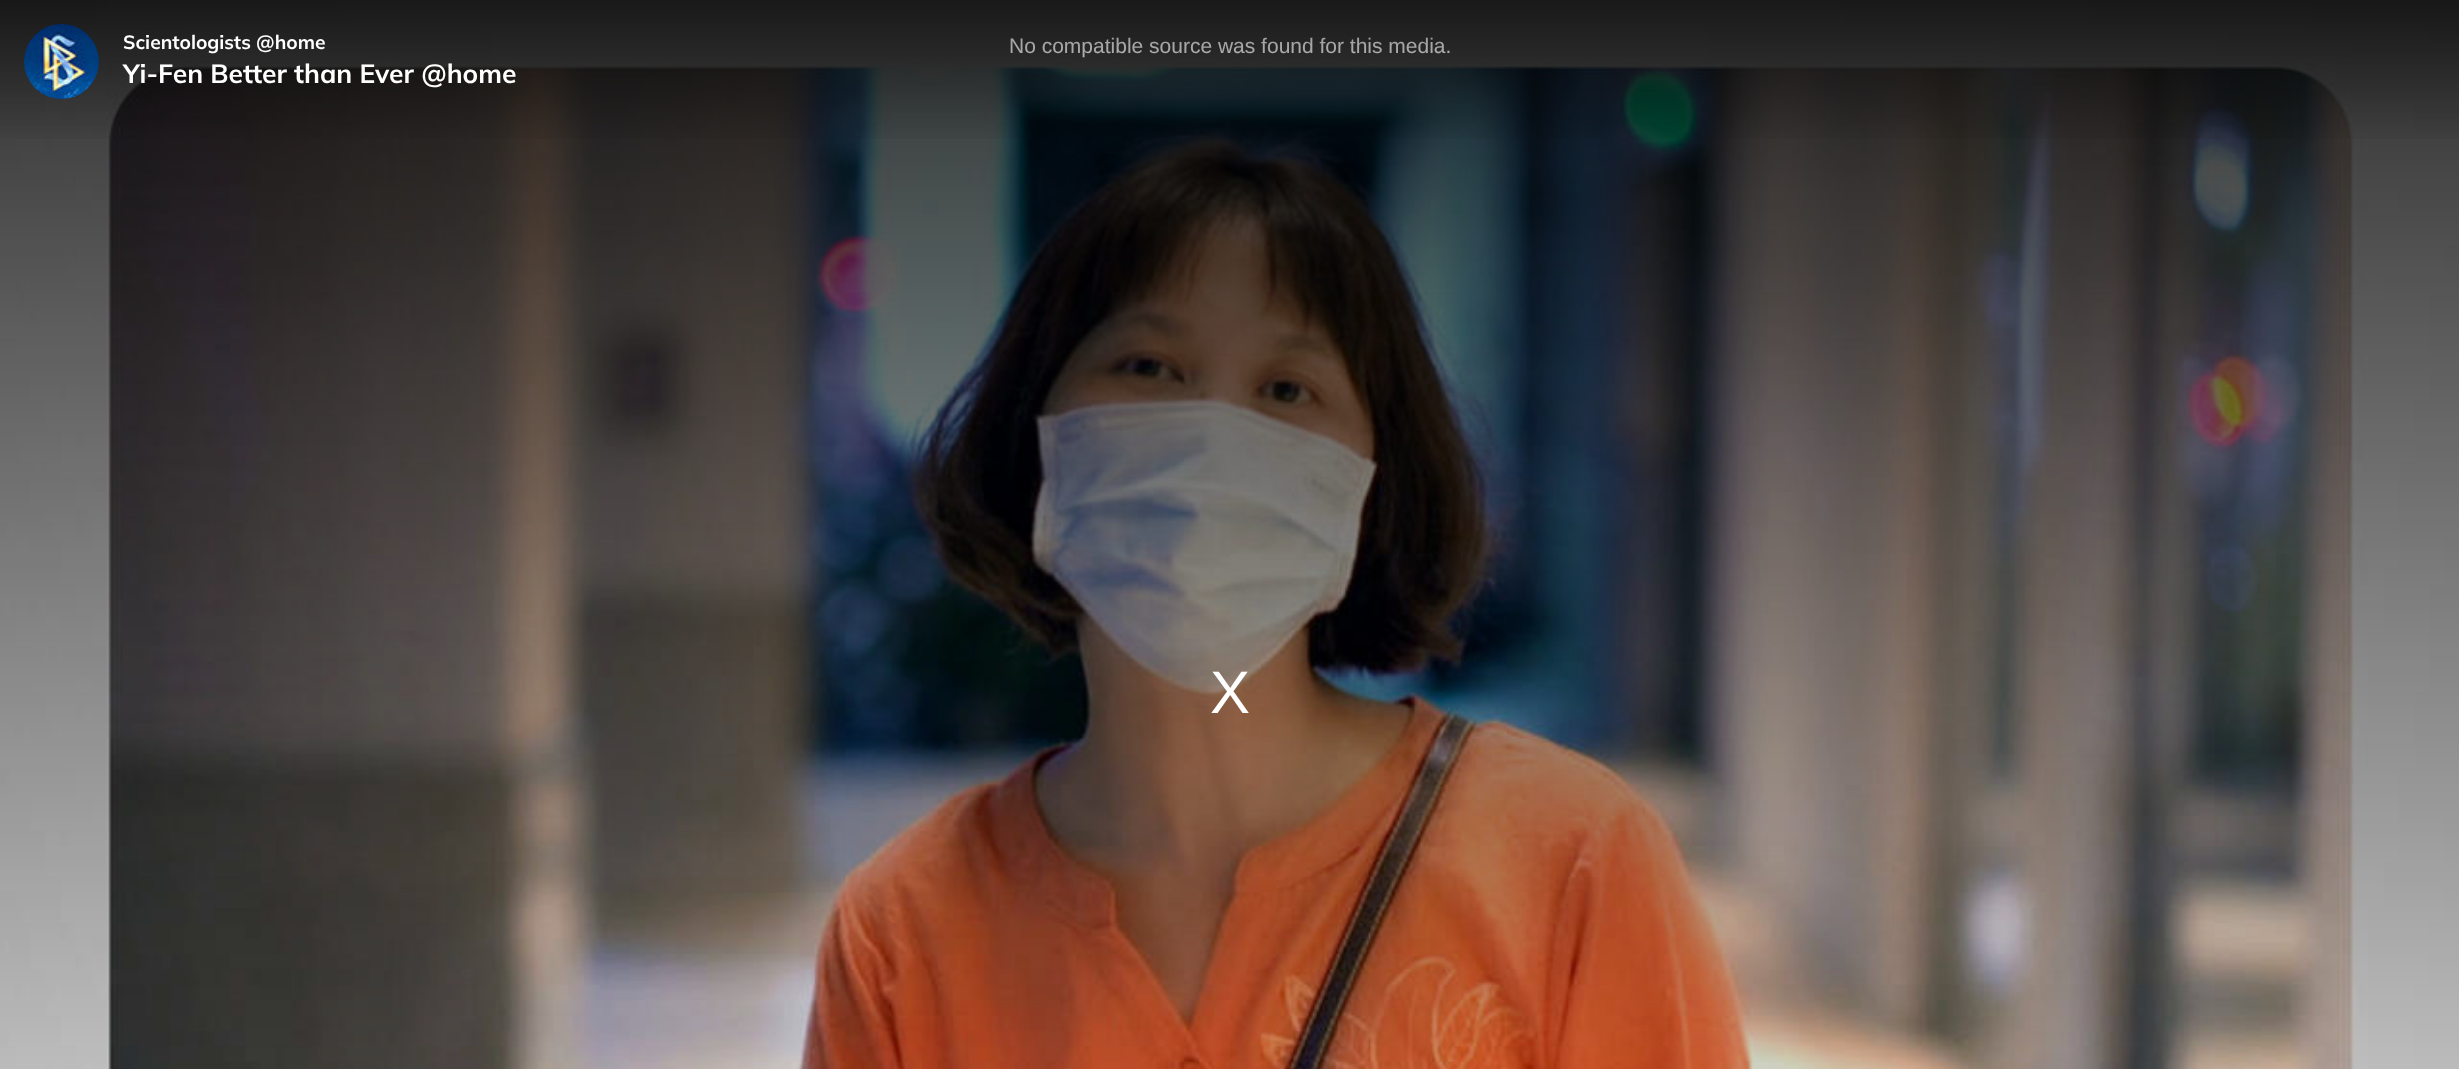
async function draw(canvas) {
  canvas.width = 2459;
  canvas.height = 1069;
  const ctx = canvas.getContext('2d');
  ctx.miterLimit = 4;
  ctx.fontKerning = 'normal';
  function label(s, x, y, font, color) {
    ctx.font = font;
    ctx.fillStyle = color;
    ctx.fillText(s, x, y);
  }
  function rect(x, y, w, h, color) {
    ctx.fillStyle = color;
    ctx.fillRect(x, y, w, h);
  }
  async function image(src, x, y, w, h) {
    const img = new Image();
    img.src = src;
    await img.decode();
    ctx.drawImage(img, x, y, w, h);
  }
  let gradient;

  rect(0, 0, 2459, 1069, '#fff');
  await image('assets/img1.png', 0, 0, 2459, 1069);
  label('No compatible source was found for this media.', 1009, 53, '21px Liberation Sans', '#fff');
  gradient = ctx.createLinearGradient(1230, 0, 1230, 150);
  gradient.addColorStop(0, '#00000080');
  gradient.addColorStop(1, '#00000000');
  ctx.fillStyle = gradient;
  ctx.fillRect(0, 0, 2459, 139);
  await image('assets/img2.png', 24, 24, 75, 75);
  label('Scientologists @home', 123, 49, 'bold 19.25px Mulish', '#fff');
  label('Yi-Fen Better than Ever @home', 123, 83, 'bold 26.4px Mulish', '#fff');
  label('X', 1210, 713, '60px Liberation Sans', '#fff');
}

draw(document.querySelector('canvas'));
